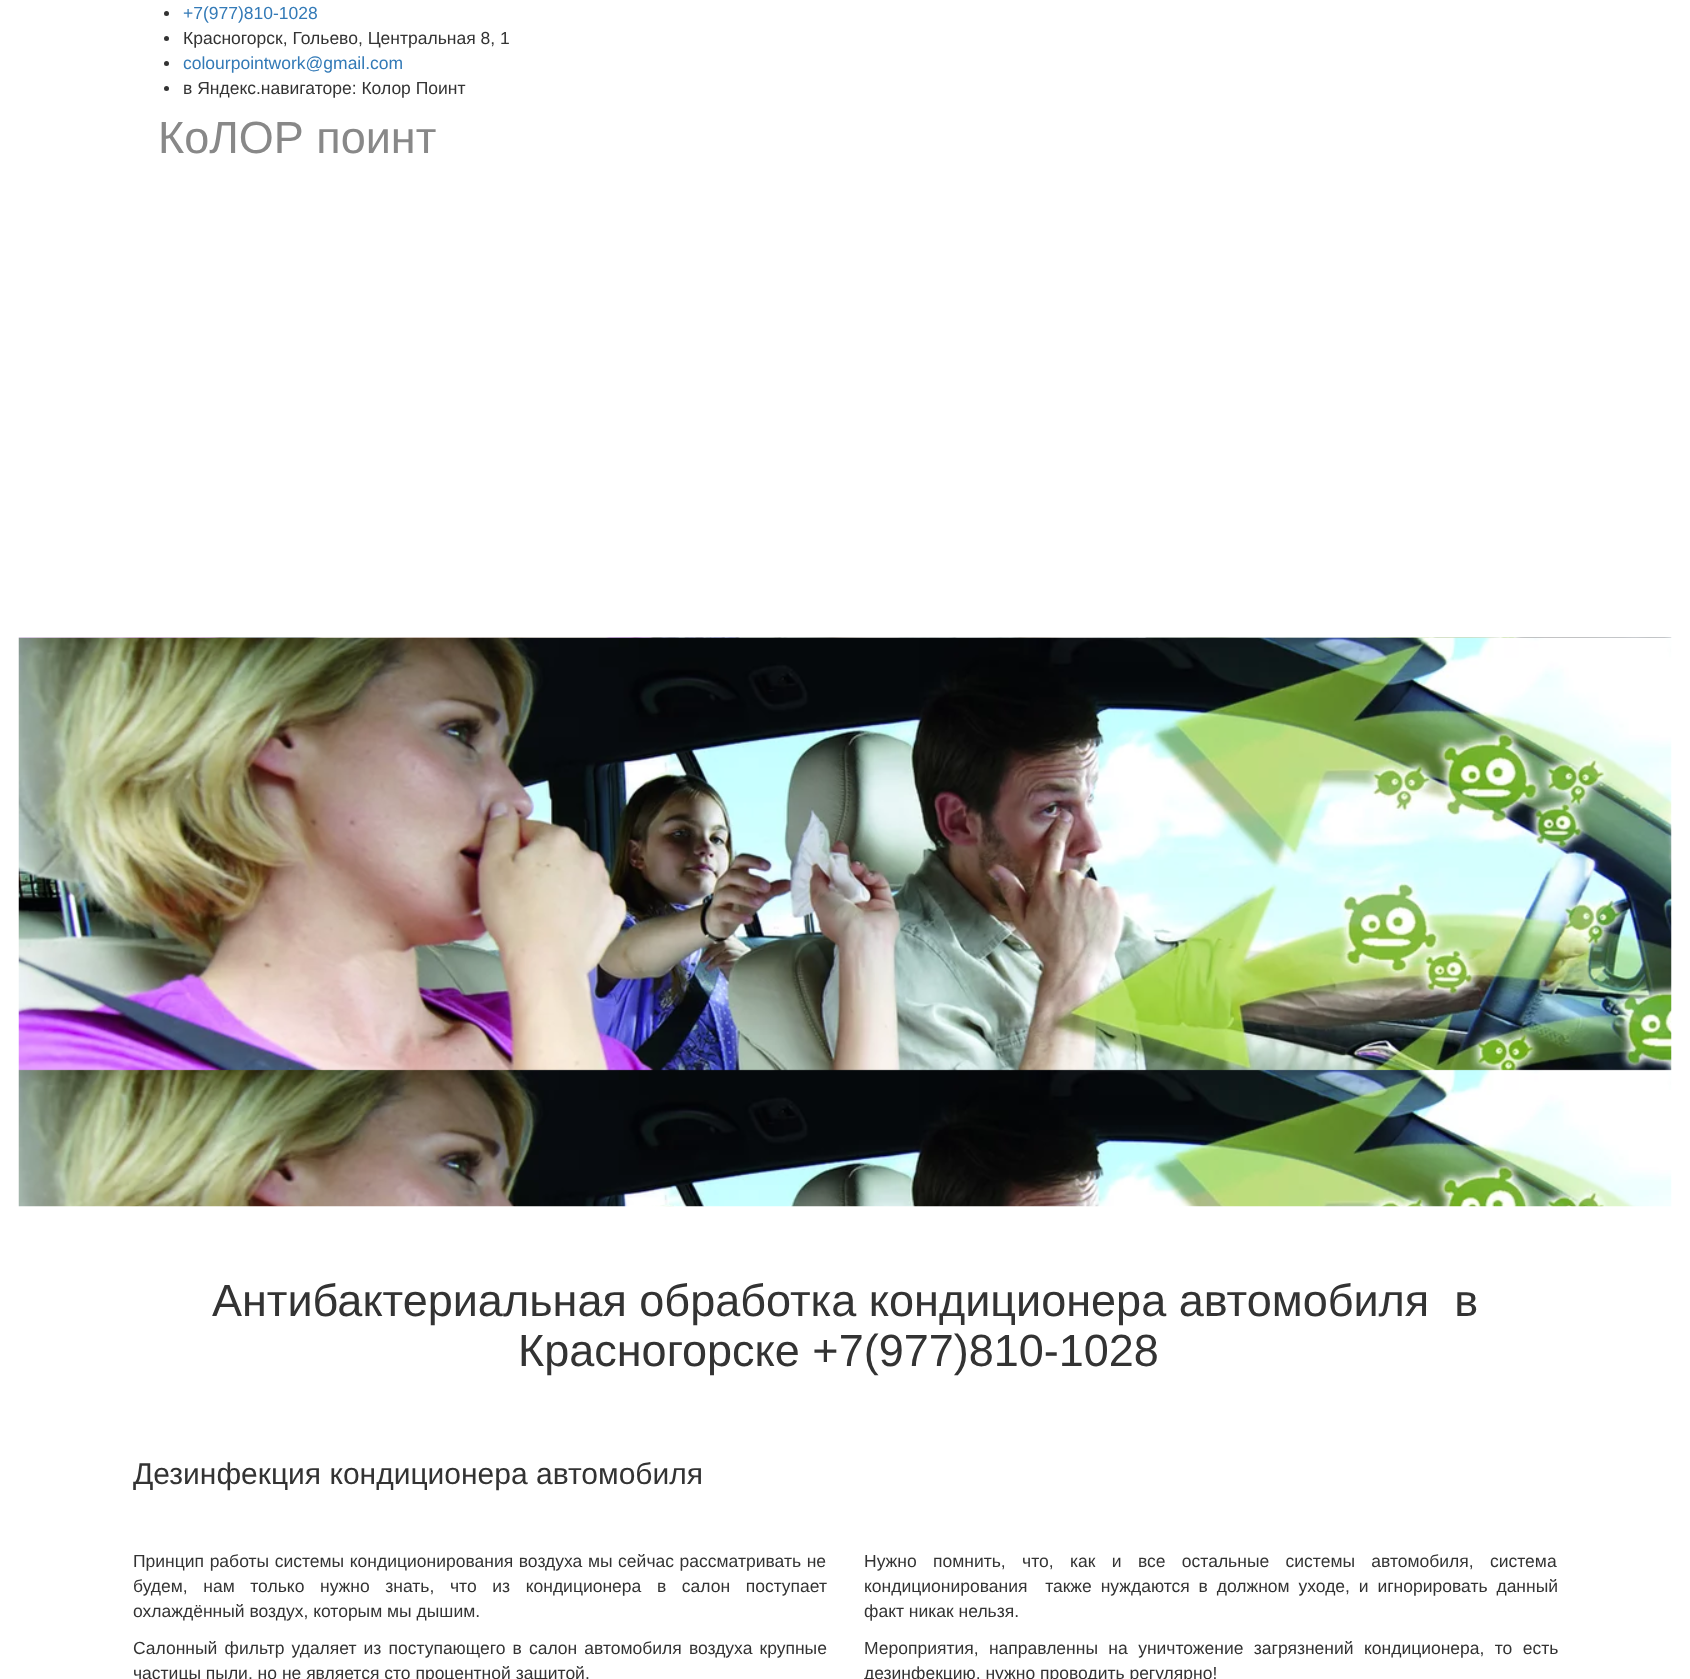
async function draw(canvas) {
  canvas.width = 1690;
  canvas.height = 1679;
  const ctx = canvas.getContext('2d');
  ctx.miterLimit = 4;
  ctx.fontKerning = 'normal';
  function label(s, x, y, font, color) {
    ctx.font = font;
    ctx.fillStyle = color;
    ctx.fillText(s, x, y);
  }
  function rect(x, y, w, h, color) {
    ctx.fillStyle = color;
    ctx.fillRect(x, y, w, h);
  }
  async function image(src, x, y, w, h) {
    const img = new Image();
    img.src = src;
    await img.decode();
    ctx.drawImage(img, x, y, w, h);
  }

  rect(0, 0, 1690, 1679, '#fff');
  ctx.fillStyle = '#333';
  ctx.beginPath();
  ctx.arc(166.5, 13.5, 2.5, 0, 2 * Math.PI);
  ctx.fill();
  label('+7(977)810-1028', 183, 19, '17.5px Liberation Sans', '#337ab7');
  ctx.fillStyle = '#333';
  ctx.beginPath();
  ctx.arc(166.5, 38.5, 2.5, 0, 2 * Math.PI);
  ctx.fill();
  label('Красногорск, Гольево, Центральная 8, 1', 183, 44, '17.5px Liberation Sans', '#333');
  ctx.beginPath();
  ctx.arc(166.5, 63.5, 2.5, 0, 2 * Math.PI);
  ctx.fill();
  label('colourpointwork@gmail.com', 183, 69, '17.5px Liberation Sans', '#337ab7');
  ctx.fillStyle = '#333';
  ctx.beginPath();
  ctx.arc(166.5, 88.5, 2.5, 0, 2 * Math.PI);
  ctx.fill();
  label('в Яндекс.навигаторе: Колор Поинт', 183, 94, '17.5px Liberation Sans', '#333');
  label('КоЛОР поинт', 158, 153, '45px Liberation Sans', '#888');
  await image('assets/img1.png', 18, 637, 1654, 570);
  label('Антибактериальная обработка кондиционера автомобиля  в', 212, 1316, '45px Liberation Sans', '#333');
  label('Красногорске +7(977)810-1028', 518, 1366, '45px Liberation Sans', '#333');
  label('Дезинфекция кондиционера автомобиля', 133, 1484, '30px Liberation Sans', '#333');
  ctx.wordSpacing = '0.75px';
  label('Принцип работы системы кондиционирования воздуха мы сейчас рассматривать не', 133, 1567, '17.5px Liberation Sans', '#333');
  ctx.wordSpacing = '10.75px';
  label('будем, нам только нужно знать, что из кондиционера в салон поступает', 133, 1592, '17.5px Liberation Sans', '#333');
  ctx.wordSpacing = '0px';
  label('охлаждённый воздух, которым мы дышим.', 133, 1617, '17.5px Liberation Sans', '#333');
  ctx.wordSpacing = '2.25px';
  label('Салонный фильтр удаляет из поступающего в салон автомобиля воздуха крупные', 133, 1654, '17.5px Liberation Sans', '#333');
  ctx.wordSpacing = '0px';
  label('частицы пыли, но не является сто процентной защитой.', 133, 1679, '17.5px Liberation Sans', '#333');
  ctx.wordSpacing = '11.5px';
  label('Нужно помнить, что, как и все остальные системы автомобиля, система', 864, 1567, '17.5px Liberation Sans', '#333');
  ctx.wordSpacing = '4px';
  label('кондиционирования  также нуждаются в должном уходе, и игнорировать данный', 864, 1592, '17.5px Liberation Sans', '#333');
  ctx.wordSpacing = '0px';
  label('факт никак нельзя.', 864, 1617, '17.5px Liberation Sans', '#333');
  ctx.wordSpacing = '5.5px';
  label('Мероприятия, направленны на уничтожение загрязнений кондиционера, то есть', 864, 1654, '17.5px Liberation Sans', '#333');
  ctx.wordSpacing = '0px';
  label('дезинфекцию, нужно проводить регулярно!', 864, 1679, '17.5px Liberation Sans', '#333');
}

draw(document.querySelector('canvas'));
